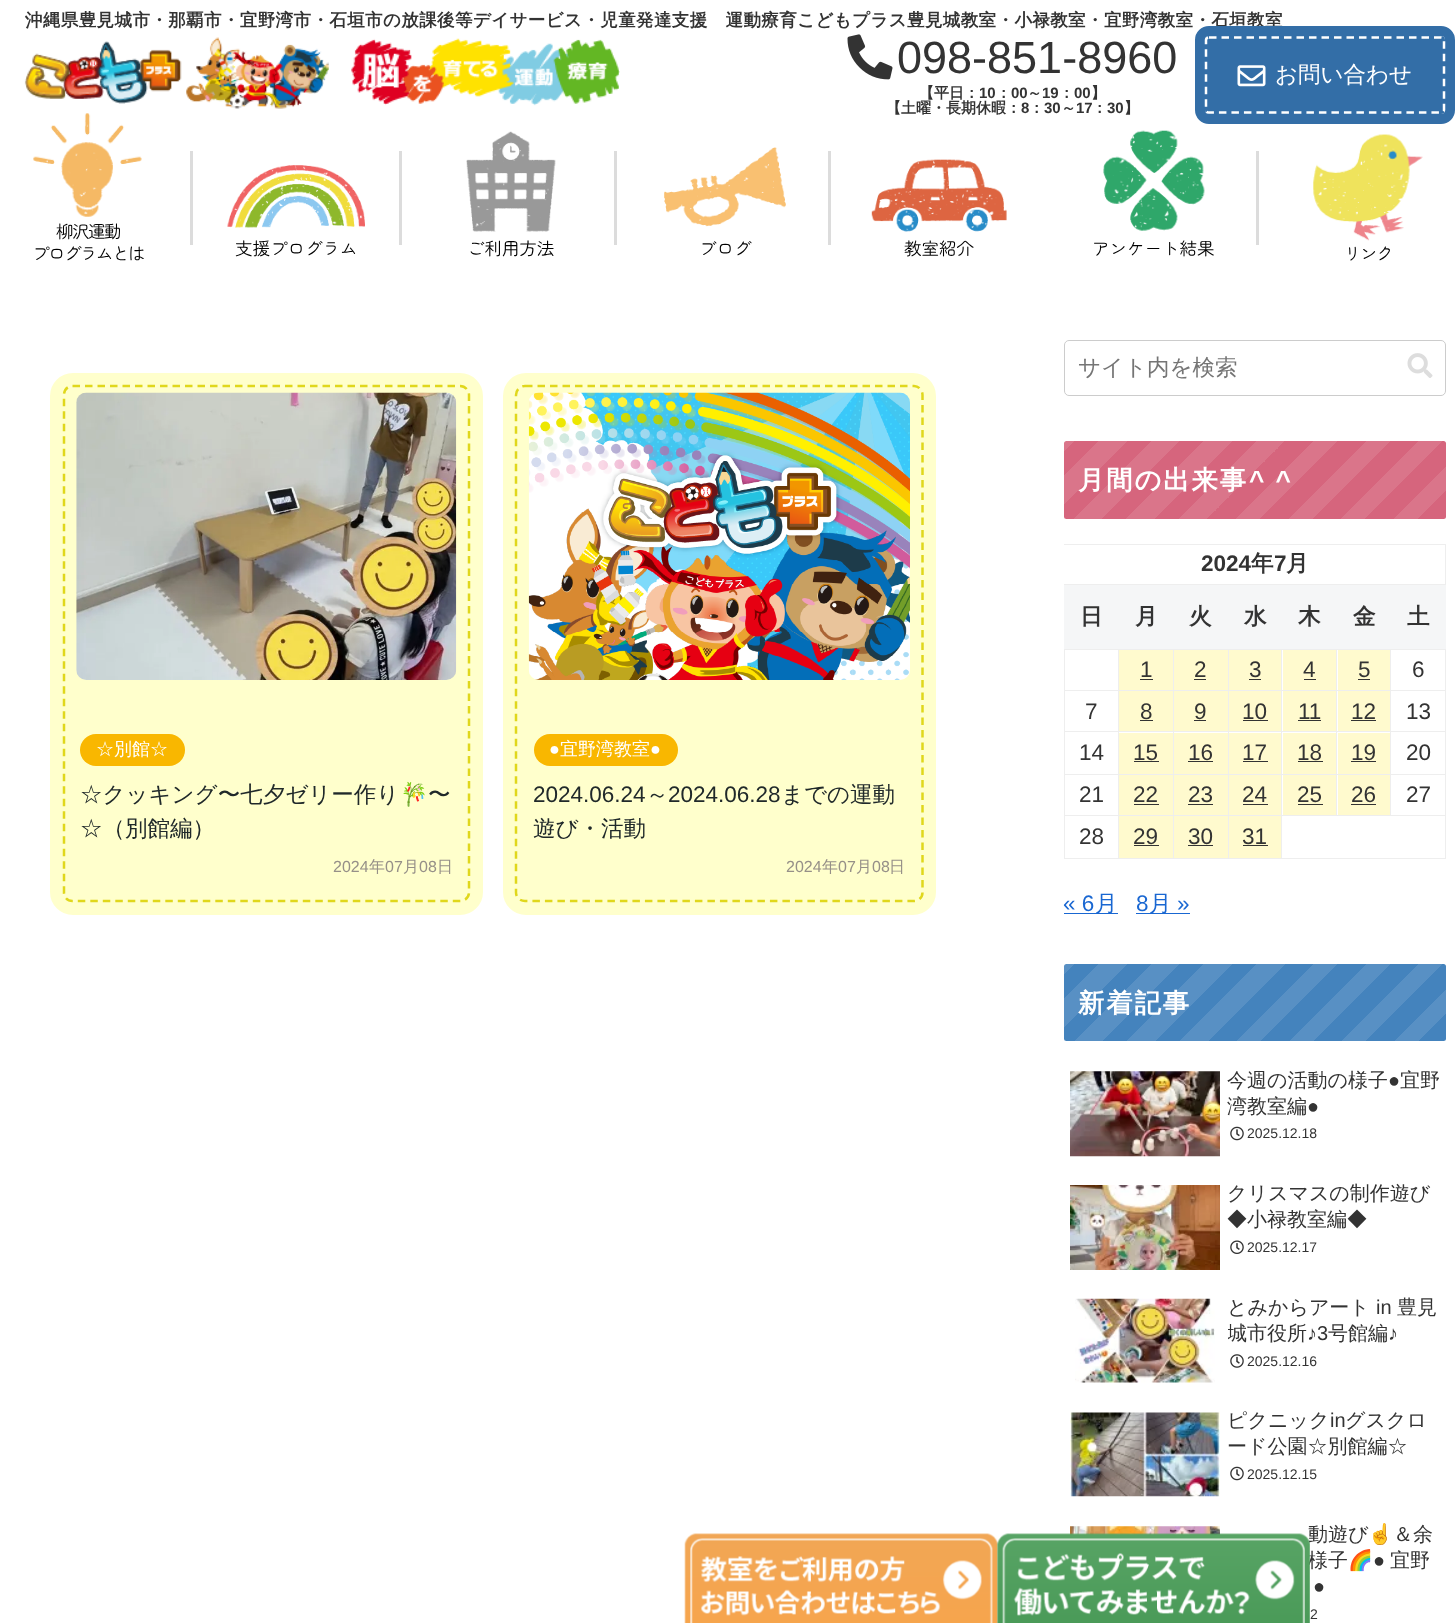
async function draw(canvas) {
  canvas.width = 1455;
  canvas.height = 1623;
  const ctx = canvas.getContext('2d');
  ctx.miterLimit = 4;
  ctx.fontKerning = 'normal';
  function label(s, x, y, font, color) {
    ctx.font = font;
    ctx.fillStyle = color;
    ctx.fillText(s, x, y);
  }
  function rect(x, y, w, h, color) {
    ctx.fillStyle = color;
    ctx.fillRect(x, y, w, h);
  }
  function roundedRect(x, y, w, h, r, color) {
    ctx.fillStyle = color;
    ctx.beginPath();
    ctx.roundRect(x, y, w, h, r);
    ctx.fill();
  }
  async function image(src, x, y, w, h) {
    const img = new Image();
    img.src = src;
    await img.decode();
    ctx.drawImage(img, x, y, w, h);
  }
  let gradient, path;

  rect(0, 0, 1455, 1623, '#fff');
  ctx.letterSpacing = '0.4px';
  label('沖縄県豊見城市・那覇市・宜野湾市・石垣市の放課後等デイサービス・児童発達支援　運動療育こどもプラス豊見城教室・小禄教室・宜野湾教室・石垣教室', 25, 26, 'bold 17.5px WenQuanYi Zen Hei', '#333');
  await image('assets/img1.png', 24, 37, 596, 72);
  await image('assets/img2.png', 847, 34, 46, 46);
  ctx.letterSpacing = '0px';
  label('098-851-8960', 897, 73, '45px Liberation Sans', '#333');
  label('【平日：', 919, 98, 'bold 15px WenQuanYi Zen Hei', '#333');
  label('10', 979, 98, 'bold 15px Liberation Sans', '#333');
  label('：', 996, 98, 'bold 15px WenQuanYi Zen Hei', '#333');
  label('00', 1011, 98, 'bold 15px Liberation Sans', '#333');
  label('～', 1027, 98, 'bold 15px WenQuanYi Zen Hei', '#333');
  label('19', 1042, 98, 'bold 15px Liberation Sans', '#333');
  label('：', 1059, 98, 'bold 15px WenQuanYi Zen Hei', '#333');
  label('00', 1074, 98, 'bold 15px Liberation Sans', '#333');
  label('】', 1091, 98, 'bold 15px WenQuanYi Zen Hei', '#333');
  label('【土曜・長期休暇：', 886, 113, 'bold 15px WenQuanYi Zen Hei', '#333');
  label('8', 1021, 113, 'bold 15px Liberation Sans', '#333');
  label('：', 1029, 113, 'bold 15px WenQuanYi Zen Hei', '#333');
  label('30', 1044, 113, 'bold 15px Liberation Sans', '#333');
  label('～', 1061, 113, 'bold 15px WenQuanYi Zen Hei', '#333');
  label('17', 1076, 113, 'bold 15px Liberation Sans', '#333');
  label('：', 1092, 113, 'bold 15px WenQuanYi Zen Hei', '#333');
  label('30', 1107, 113, 'bold 15px Liberation Sans', '#333');
  label('】', 1124, 113, 'bold 15px WenQuanYi Zen Hei', '#333');
  ctx.beginPath();
  ctx.roundRect(1200, 31, 250, 88, 9);
  ctx.strokeStyle = '#336ea7';
  ctx.lineWidth = 10;
  ctx.stroke();
  roundedRect(1205, 36, 240, 78, 4, '#336ea7');
  path = new Path2D('M1209 37.5H1441C1442.5 37.5 1444 38.5 1444 40V110C1444 111.5 1442.5 112.5 1441 112.5H1209C1207.5 112.5 1206 111.5 1206 110V40C1206 38.5 1207.5 37.5 1209 37.5Z');
  ctx.strokeStyle = '#fff';
  ctx.lineWidth = 2.5;
  ctx.setLineDash([7.5, 5]);
  ctx.stroke(path);
  await image('assets/img3.png', 1237, 65, 29, 22);
  label('お問い合わせ', 1275, 82, '500 22.5px WenQuanYi Zen Hei', '#fff');
  await image('assets/img4.png', 33, 113, 109, 104);
  ctx.letterSpacing = '-1.5px';
  label('柳沢運動', 56, 238, '17.5px Zen Maru Gothic', '#000');
  label('プログラムとは', 32, 260, '17.5px Zen Maru Gothic', '#000');
  rect(190, 151, 3, 94, '#dcdcdc');
  rect(399, 151, 3, 94, '#dcdcdc');
  await image('assets/img5.png', 227, 165, 138, 63);
  ctx.letterSpacing = '0px';
  label('支援プログラム', 235, 255, '17.5px Zen Maru Gothic', '#000');
  rect(614, 151, 3, 94, '#dcdcdc');
  await image('assets/img6.png', 466, 131, 90, 101);
  label('ご利用方法', 467, 255, '17.5px Zen Maru Gothic', '#000');
  rect(828, 151, 3, 94, '#dcdcdc');
  await image('assets/img7.png', 664, 147, 122, 80);
  label('ブログ', 699, 255, '17.5px Zen Maru Gothic', '#000');
  await image('assets/img8.png', 871, 159, 136, 73);
  label('教室紹介', 904, 255, '17.5px Zen Maru Gothic', '#000');
  rect(1256, 151, 3, 94, '#dcdcdc');
  await image('assets/img9.png', 1103, 130, 102, 101);
  label('アンケート結果', 1092, 255, '17.5px Zen Maru Gothic', '#000');
  await image('assets/img10.png', 1313, 134, 110, 107);
  ctx.letterSpacing = '-1.5px';
  label('リンク', 1344, 260, '17.5px Zen Maru Gothic', '#000');
  await image('assets/img11.png', 684, 1533, 314, 90);
  await image('assets/img23.png', 1070, 1526, 150, 9);
  ctx.letterSpacing = '0px';
  label('動遊び', 1308, 1541, '500 20px WenQuanYi Zen Hei', '#333');
  label('様子', 1308, 1567, '500 20px WenQuanYi Zen Hei', '#333');
  await image('assets/img12.png', 997, 1533, 313, 90);
  ctx.beginPath();
  ctx.roundRect(56.5, 379.5, 420, 529, 16.5);
  ctx.strokeStyle = '#ffc';
  ctx.lineWidth = 13;
  ctx.setLineDash([]);
  ctx.stroke();
  roundedRect(63, 385, 407, 518, 10, '#ffc');
  path = new Path2D('M72.5 386H460C465 386 469 390 469 395V892.5C469 897.5 465 901 460 901H72.5C67.5 901 64 897.5 64 892.5V395C64 390 67.5 386 72.5 386Z');
  ctx.strokeStyle = '#e0d71c';
  ctx.lineWidth = 2.5;
  ctx.setLineDash([7.5, 5]);
  ctx.stroke(path);
  await image('assets/img13.png', 76, 392, 381, 288);
  roundedRect(80, 734, 105, 32, 16, '#f9b700');
  label('☆別館☆', 96, 755, '500 18px WenQuanYi Zen Hei', '#fff');
  label('☆クッキング〜七夕ゼリー作り', 80, 802, '500 22.5px WenQuanYi Zen Hei', '#20292a');
  label('🎋', 400, 802, '22.5px Noto Color Emoji', '#20292a');
  label('〜', 428, 802, '500 22.5px WenQuanYi Zen Hei', '#20292a');
  label('☆（別館編）', 80, 836, '500 22.5px WenQuanYi Zen Hei', '#20292a');
  label('2024', 333, 872, '16px Liberation Sans', '#969088');
  label('年', 369, 872, '500 16px WenQuanYi Zen Hei', '#969088');
  label('07', 385, 872, '16px Liberation Sans', '#969088');
  label('月', 403, 872, '500 16px WenQuanYi Zen Hei', '#969088');
  label('08', 419, 872, '16px Liberation Sans', '#969088');
  label('日', 437, 872, '500 16px WenQuanYi Zen Hei', '#969088');
  ctx.beginPath();
  ctx.roundRect(509.5, 379.5, 420, 529, 16.5);
  ctx.strokeStyle = '#ffc';
  ctx.lineWidth = 13;
  ctx.setLineDash([]);
  ctx.stroke();
  roundedRect(515, 385, 409, 518, 10, '#ffc');
  path = new Path2D('M525 386H914C918.5 386 922.5 390 922.5 395V892.5C922.5 897.5 918.5 901 914 901H525C520 901 516 897.5 516 892.5V395C516 390 520 386 525 386Z');
  ctx.strokeStyle = '#e0d71c';
  ctx.lineWidth = 2.5;
  ctx.setLineDash([7.5, 5]);
  ctx.stroke(path);
  await image('assets/img14.png', 528, 392, 382, 288);
  roundedRect(534, 734, 144, 32, 16, '#f9b700');
  label('●', 549, 755, '18px Liberation Sans', '#fff');
  label('宜野湾教室', 560, 755, '500 18px WenQuanYi Zen Hei', '#fff');
  label('●', 650, 755, '18px Liberation Sans', '#fff');
  label('2024.06.24', 533, 802, '22.5px Liberation Sans', '#20292a');
  label('～', 646, 802, '500 22.5px WenQuanYi Zen Hei', '#20292a');
  label('2024.06.28', 668, 802, '22.5px Liberation Sans', '#20292a');
  label('までの運動', 781, 802, '500 22.5px WenQuanYi Zen Hei', '#20292a');
  label('遊び・活動', 533, 836, '500 22.5px WenQuanYi Zen Hei', '#20292a');
  label('2024', 786, 872, '16px Liberation Sans', '#969088');
  label('年', 822, 872, '500 16px WenQuanYi Zen Hei', '#969088');
  label('07', 838, 872, '16px Liberation Sans', '#969088');
  label('月', 856, 872, '500 16px WenQuanYi Zen Hei', '#969088');
  label('08', 872, 872, '16px Liberation Sans', '#969088');
  label('日', 889, 872, '500 16px WenQuanYi Zen Hei', '#969088');
  ctx.beginPath();
  ctx.roundRect(1064.5, 340.5, 381, 55, 4.5);
  ctx.strokeStyle = '#ccc';
  ctx.lineWidth = 1;
  ctx.setLineDash([]);
  ctx.stroke();
  label('サイト内を検索', 1078, 375, '500 22.5px WenQuanYi Zen Hei', '#757575');
  await image('assets/img15.png', 1407, 353, 26, 25);
  gradient = ctx.createLinearGradient(1370, 595, 1131, 356);
  gradient.addColorStop(0, '#d6657d');
  gradient.addColorStop(0.06, '#d6657d');
  gradient.addColorStop(0.06, '#da758a');
  gradient.addColorStop(0.11, '#da758a');
  gradient.addColorStop(0.11, '#d6657d');
  gradient.addColorStop(0.17, '#d6657d');
  gradient.addColorStop(0.17, '#da758a');
  gradient.addColorStop(0.22, '#da758a');
  gradient.addColorStop(0.22, '#d6657d');
  gradient.addColorStop(0.28, '#d6657d');
  gradient.addColorStop(0.28, '#da758a');
  gradient.addColorStop(0.33, '#da758a');
  gradient.addColorStop(0.33, '#d6657d');
  gradient.addColorStop(0.39, '#d6657d');
  gradient.addColorStop(0.39, '#da758a');
  gradient.addColorStop(0.44, '#da758a');
  gradient.addColorStop(0.44, '#d6657d');
  gradient.addColorStop(0.5, '#d6657d');
  gradient.addColorStop(0.5, '#da758a');
  gradient.addColorStop(0.56, '#da758a');
  gradient.addColorStop(0.56, '#d6657d');
  gradient.addColorStop(0.61, '#d6657d');
  gradient.addColorStop(0.61, '#da758a');
  gradient.addColorStop(0.67, '#da758a');
  gradient.addColorStop(0.67, '#d6657d');
  gradient.addColorStop(0.72, '#d6657d');
  gradient.addColorStop(0.72, '#da758a');
  gradient.addColorStop(0.78, '#da758a');
  gradient.addColorStop(0.78, '#d6657d');
  gradient.addColorStop(0.83, '#d6657d');
  gradient.addColorStop(0.83, '#da758a');
  gradient.addColorStop(0.89, '#da758a');
  gradient.addColorStop(0.89, '#d6657d');
  gradient.addColorStop(0.94, '#d6657d');
  gradient.addColorStop(0.94, '#da758a');
  gradient.addColorStop(1, '#da758a');
  ctx.fillStyle = gradient;
  ctx.beginPath();
  ctx.roundRect(1064, 441, 382, 78, 2.5);
  ctx.fill();
  ctx.letterSpacing = '2px';
  label('月間の出来事', 1078, 489, 'bold 26.25px WenQuanYi Zen Hei', '#fff');
  label('^ ^', 1249, 489, 'bold 26.25px Liberation Sans', '#fff');
  rect(1064, 544, 382, 1, '#eee');
  rect(1445, 544, 1, 315, '#eee');
  ctx.letterSpacing = '0px';
  label('2024', 1201, 571, 'bold 22.5px Liberation Sans', '#333');
  label('年', 1251, 571, 'bold 22.5px WenQuanYi Zen Hei', '#333');
  label('7', 1274, 571, 'bold 22.5px Liberation Sans', '#333');
  label('月', 1286, 571, 'bold 22.5px WenQuanYi Zen Hei', '#333');
  rect(1064, 584, 382, 1, '#eee');
  rect(1390, 649, 56, 1, '#eee');
  rect(1390, 690, 56, 1, '#eee');
  rect(1390, 731, 56, 1, '#eee');
  rect(1390, 774, 56, 1, '#eee');
  rect(1281, 815, 165, 1, '#eee');
  rect(1390, 774, 1, 42, '#eee');
  rect(1336, 774, 55, 1, '#eee');
  rect(1390, 731, 1, 44, '#eee');
  rect(1336, 731, 55, 1, '#eee');
  rect(1390, 690, 1, 43, '#eee');
  rect(1336, 690, 55, 1, '#eee');
  rect(1390, 649, 1, 42, '#eee');
  rect(1336, 649, 55, 1, '#eee');
  rect(1336, 774, 1, 42, '#eee');
  rect(1281, 774, 57, 1, '#eee');
  rect(1336, 731, 1, 44, '#eee');
  rect(1281, 731, 57, 1, '#eee');
  rect(1336, 690, 1, 43, '#eee');
  rect(1281, 690, 57, 1, '#eee');
  rect(1336, 649, 1, 42, '#eee');
  rect(1281, 649, 57, 1, '#eee');
  rect(1281, 858, 165, 1, '#eee');
  rect(1281, 815, 1, 44, '#eee');
  rect(1228, 815, 55, 1, '#eee');
  rect(1281, 774, 1, 42, '#eee');
  rect(1228, 774, 55, 1, '#eee');
  rect(1281, 731, 1, 44, '#eee');
  rect(1228, 731, 55, 1, '#eee');
  rect(1281, 690, 1, 43, '#eee');
  rect(1228, 690, 55, 1, '#eee');
  rect(1281, 649, 1, 42, '#eee');
  rect(1228, 649, 55, 1, '#eee');
  rect(1228, 858, 55, 1, '#eee');
  rect(1228, 815, 1, 44, '#eee');
  rect(1173, 815, 56, 1, '#eee');
  rect(1228, 774, 1, 42, '#eee');
  rect(1173, 774, 56, 1, '#eee');
  rect(1228, 731, 1, 44, '#eee');
  rect(1173, 731, 56, 1, '#eee');
  rect(1228, 690, 1, 43, '#eee');
  rect(1173, 690, 56, 1, '#eee');
  rect(1228, 649, 1, 42, '#eee');
  rect(1173, 649, 56, 1, '#eee');
  rect(1173, 858, 56, 1, '#eee');
  rect(1173, 815, 1, 44, '#eee');
  rect(1118, 815, 56, 1, '#eee');
  rect(1173, 774, 1, 42, '#eee');
  rect(1118, 774, 56, 1, '#eee');
  rect(1173, 731, 1, 44, '#eee');
  rect(1118, 731, 56, 1, '#eee');
  rect(1173, 690, 1, 43, '#eee');
  rect(1118, 690, 56, 1, '#eee');
  rect(1173, 649, 1, 42, '#eee');
  rect(1118, 649, 56, 1, '#eee');
  rect(1118, 858, 56, 1, '#eee');
  rect(1118, 815, 1, 44, '#eee');
  rect(1064, 815, 55, 1, '#eee');
  rect(1118, 774, 1, 42, '#eee');
  rect(1064, 774, 55, 1, '#eee');
  rect(1118, 731, 1, 44, '#eee');
  rect(1064, 731, 55, 1, '#eee');
  rect(1118, 690, 1, 43, '#eee');
  rect(1064, 690, 55, 1, '#eee');
  rect(1118, 649, 1, 42, '#eee');
  rect(1064, 649, 55, 1, '#eee');
  rect(1064, 858, 55, 1, '#eee');
  rect(1064, 815, 1, 44, '#eee');
  rect(1064, 774, 1, 42, '#eee');
  rect(1064, 731, 1, 44, '#eee');
  rect(1064, 690, 1, 43, '#eee');
  rect(1064, 649, 1, 42, '#eee');
  rect(1064, 584, 1, 66, '#eee');
  rect(1064, 585, 382, 64, '#f5f6f7');
  label('日', 1080, 624, 'bold 22.5px WenQuanYi Zen Hei', '#333');
  label('月', 1135, 624, 'bold 22.5px WenQuanYi Zen Hei', '#333');
  label('火', 1189, 624, 'bold 22.5px WenQuanYi Zen Hei', '#333');
  label('水', 1244, 624, 'bold 22.5px WenQuanYi Zen Hei', '#333');
  label('木', 1298, 624, 'bold 22.5px WenQuanYi Zen Hei', '#333');
  label('金', 1353, 624, 'bold 22.5px WenQuanYi Zen Hei', '#333');
  label('土', 1407, 624, 'bold 22.5px WenQuanYi Zen Hei', '#333');
  rect(1119, 650, 54, 40, '#ffface');
  label('1', 1140, 677, '22.5px Liberation Sans', '#333');
  rect(1140, 679, 13, 1, '#333');
  rect(1174, 650, 54, 40, '#ffface');
  label('2', 1194, 677, '22.5px Liberation Sans', '#333');
  rect(1194, 679, 12, 1, '#333');
  rect(1229, 650, 52, 40, '#ffface');
  label('3', 1249, 677, '22.5px Liberation Sans', '#333');
  rect(1249, 679, 12, 1, '#333');
  rect(1283, 650, 53, 40, '#ffface');
  label('4', 1303, 677, '22.5px Liberation Sans', '#333');
  rect(1304, 679, 12, 1, '#333');
  rect(1338, 650, 52, 40, '#ffface');
  label('5', 1358, 677, '22.5px Liberation Sans', '#333');
  rect(1358, 679, 12, 1, '#333');
  label('6', 1412, 677, '22.5px Liberation Sans', '#333');
  label('7', 1085, 719, '22.5px Liberation Sans', '#333');
  rect(1119, 691, 54, 40, '#ffface');
  label('8', 1140, 719, '22.5px Liberation Sans', '#333');
  rect(1140, 720, 13, 1, '#333');
  rect(1174, 691, 54, 40, '#ffface');
  label('9', 1194, 719, '22.5px Liberation Sans', '#333');
  rect(1194, 720, 12, 1, '#333');
  rect(1229, 691, 52, 40, '#ffface');
  label('10', 1242, 719, '22.5px Liberation Sans', '#333');
  rect(1243, 720, 25, 1, '#333');
  rect(1283, 691, 53, 40, '#ffface');
  label('11', 1298, 719, '22.5px Liberation Sans', '#333');
  rect(1298, 720, 23, 1, '#333');
  rect(1338, 691, 52, 40, '#ffface');
  label('12', 1351, 719, '22.5px Liberation Sans', '#333');
  rect(1351, 720, 25, 1, '#333');
  label('13', 1406, 719, '22.5px Liberation Sans', '#333');
  label('14', 1079, 760, '22.5px Liberation Sans', '#333');
  rect(1119, 733, 54, 41, '#ffface');
  label('15', 1133, 760, '22.5px Liberation Sans', '#333');
  rect(1134, 761, 25, 1, '#333');
  rect(1174, 733, 54, 41, '#ffface');
  label('16', 1188, 760, '22.5px Liberation Sans', '#333');
  rect(1188, 761, 25, 1, '#333');
  rect(1229, 733, 52, 41, '#ffface');
  label('17', 1242, 760, '22.5px Liberation Sans', '#333');
  rect(1243, 761, 25, 1, '#333');
  rect(1283, 733, 53, 41, '#ffface');
  label('18', 1297, 760, '22.5px Liberation Sans', '#333');
  rect(1298, 761, 25, 1, '#333');
  rect(1338, 733, 52, 41, '#ffface');
  label('19', 1351, 760, '22.5px Liberation Sans', '#333');
  rect(1351, 761, 25, 1, '#333');
  label('20', 1406, 760, '22.5px Liberation Sans', '#333');
  label('21', 1079, 802, '22.5px Liberation Sans', '#333');
  rect(1119, 775, 54, 40, '#ffface');
  label('22', 1133, 802, '22.5px Liberation Sans', '#333');
  rect(1134, 804, 25, 1, '#333');
  rect(1174, 775, 54, 40, '#ffface');
  label('23', 1188, 802, '22.5px Liberation Sans', '#333');
  rect(1188, 804, 25, 1, '#333');
  rect(1229, 775, 52, 40, '#ffface');
  label('24', 1242, 802, '22.5px Liberation Sans', '#333');
  rect(1243, 804, 25, 1, '#333');
  rect(1283, 775, 53, 40, '#ffface');
  label('25', 1297, 802, '22.5px Liberation Sans', '#333');
  rect(1298, 804, 25, 1, '#333');
  rect(1338, 775, 52, 40, '#ffface');
  label('26', 1351, 802, '22.5px Liberation Sans', '#333');
  rect(1351, 804, 25, 1, '#333');
  label('27', 1406, 802, '22.5px Liberation Sans', '#333');
  label('28', 1079, 844, '22.5px Liberation Sans', '#333');
  rect(1119, 816, 54, 42, '#ffface');
  label('29', 1133, 844, '22.5px Liberation Sans', '#333');
  rect(1134, 845, 25, 1, '#333');
  rect(1174, 816, 54, 42, '#ffface');
  label('30', 1188, 844, '22.5px Liberation Sans', '#333');
  rect(1188, 845, 25, 1, '#333');
  rect(1229, 816, 52, 42, '#ffface');
  label('31', 1242, 844, '22.5px Liberation Sans', '#333');
  rect(1243, 845, 25, 1, '#333');
  label('« 6', 1063, 911, '22.5px Liberation Sans', '#1967d2');
  rect(1064, 913, 54, 1, '#1967d2');
  label('月', 1095, 911, '500 22.5px WenQuanYi Zen Hei', '#1967d2');
  label('8', 1136, 911, '22.5px Liberation Sans', '#1967d2');
  rect(1136, 913, 54, 1, '#1967d2');
  label('月', 1149, 911, '500 22.5px WenQuanYi Zen Hei', '#1967d2');
  label('»', 1177, 911, '22.5px Liberation Sans', '#1967d2');
  gradient = ctx.createLinearGradient(1370, 1118, 1131, 879);
  gradient.addColorStop(0, '#4483bd');
  gradient.addColorStop(0.06, '#4483bd');
  gradient.addColorStop(0.06, '#5890c4');
  gradient.addColorStop(0.11, '#5890c4');
  gradient.addColorStop(0.11, '#4483bd');
  gradient.addColorStop(0.17, '#4483bd');
  gradient.addColorStop(0.17, '#5890c4');
  gradient.addColorStop(0.22, '#5890c4');
  gradient.addColorStop(0.22, '#4483bd');
  gradient.addColorStop(0.28, '#4483bd');
  gradient.addColorStop(0.28, '#5890c4');
  gradient.addColorStop(0.33, '#5890c4');
  gradient.addColorStop(0.33, '#4483bd');
  gradient.addColorStop(0.39, '#4483bd');
  gradient.addColorStop(0.39, '#5890c4');
  gradient.addColorStop(0.44, '#5890c4');
  gradient.addColorStop(0.44, '#4483bd');
  gradient.addColorStop(0.5, '#4483bd');
  gradient.addColorStop(0.5, '#5890c4');
  gradient.addColorStop(0.56, '#5890c4');
  gradient.addColorStop(0.56, '#4483bd');
  gradient.addColorStop(0.61, '#4483bd');
  gradient.addColorStop(0.61, '#5890c4');
  gradient.addColorStop(0.67, '#5890c4');
  gradient.addColorStop(0.67, '#4483bd');
  gradient.addColorStop(0.72, '#4483bd');
  gradient.addColorStop(0.72, '#5890c4');
  gradient.addColorStop(0.78, '#5890c4');
  gradient.addColorStop(0.78, '#4483bd');
  gradient.addColorStop(0.83, '#4483bd');
  gradient.addColorStop(0.83, '#5890c4');
  gradient.addColorStop(0.89, '#5890c4');
  gradient.addColorStop(0.89, '#4483bd');
  gradient.addColorStop(0.94, '#4483bd');
  gradient.addColorStop(0.94, '#5890c4');
  gradient.addColorStop(1, '#5890c4');
  ctx.fillStyle = gradient;
  ctx.beginPath();
  ctx.roundRect(1064, 964, 382, 77, 2.5);
  ctx.fill();
  ctx.letterSpacing = '2px';
  label('新着記事', 1078, 1012, 'bold 26.25px WenQuanYi Zen Hei', '#fff');
  await image('assets/img16.png', 1070, 1071, 150, 86);
  ctx.letterSpacing = '0px';
  label('今週の活動の様子', 1227, 1087, '500 20px WenQuanYi Zen Hei', '#333');
  label('●', 1388, 1087, '20px Liberation Sans', '#333');
  label('宜野', 1400, 1087, '500 20px WenQuanYi Zen Hei', '#333');
  label('湾教室編', 1227, 1113, '500 20px WenQuanYi Zen Hei', '#333');
  label('●', 1307, 1113, '20px Liberation Sans', '#333');
  await image('assets/img17.png', 1230, 1126, 14, 15);
  label('2025.12.18', 1247, 1138, '14px Liberation Sans', '#333');
  await image('assets/img18.png', 1070, 1185, 150, 85);
  label('クリスマスの制作遊び', 1227, 1200, '500 20px WenQuanYi Zen Hei', '#333');
  label('◆小禄教室編◆', 1227, 1226, '500 20px WenQuanYi Zen Hei', '#333');
  await image('assets/img19.png', 1230, 1240, 14, 14);
  label('2025.12.17', 1247, 1252, '14px Liberation Sans', '#333');
  await image('assets/img20.png', 1075, 1298, 140, 85);
  label('とみからアート', 1227, 1314, '500 20px WenQuanYi Zen Hei', '#333');
  label('in', 1376, 1314, '20px Liberation Sans', '#333');
  label('豊見', 1397, 1314, '500 20px WenQuanYi Zen Hei', '#333');
  ctx.save();
  ctx.beginPath();
  ctx.rect(1228, 1295, 212, 53);
  ctx.clip();
  label('城市役所', 1227, 1340, '500 20px WenQuanYi Zen Hei', '#333');
  ctx.restore();
  label('♪3', 1307, 1340, '20px Liberation Sans', '#333');
  label('号館編', 1328, 1340, '500 20px WenQuanYi Zen Hei', '#333');
  label('♪', 1388, 1340, '20px Liberation Sans', '#333');
  await image('assets/img21.png', 1230, 1354, 14, 14);
  label('2025.12.16', 1247, 1366, '14px Liberation Sans', '#333');
  await image('assets/img22.png', 1070, 1412, 150, 85);
  label('ピクニック', 1227, 1427, '500 20px WenQuanYi Zen Hei', '#333');
  label('in', 1330, 1427, '20px Liberation Sans', '#333');
  label('グスクロ', 1345, 1427, '500 20px WenQuanYi Zen Hei', '#333');
  label('ード公園☆別館編☆', 1227, 1453, '500 20px WenQuanYi Zen Hei', '#333');
  await image('assets/img17.png', 1230, 1466, 14, 15);
  label('2025.12.15', 1247, 1479, '14px Liberation Sans', '#333');
  label('☝️', 1368, 1541, '20px Noto Color Emoji', '#333');
  label('＆余', 1393, 1541, '500 20px WenQuanYi Zen Hei', '#333');
  label('🌈', 1348, 1567, '20px Noto Color Emoji', '#333');
  label('●', 1373, 1567, '20px Liberation Sans', '#333');
  label('宜野', 1390, 1567, '500 20px WenQuanYi Zen Hei', '#333');
  label('●', 1313, 1593, '20px Liberation Sans', '#333');
  label('2', 1310, 1619, '14px Liberation Sans', '#333');
}

draw(document.querySelector('canvas'));
